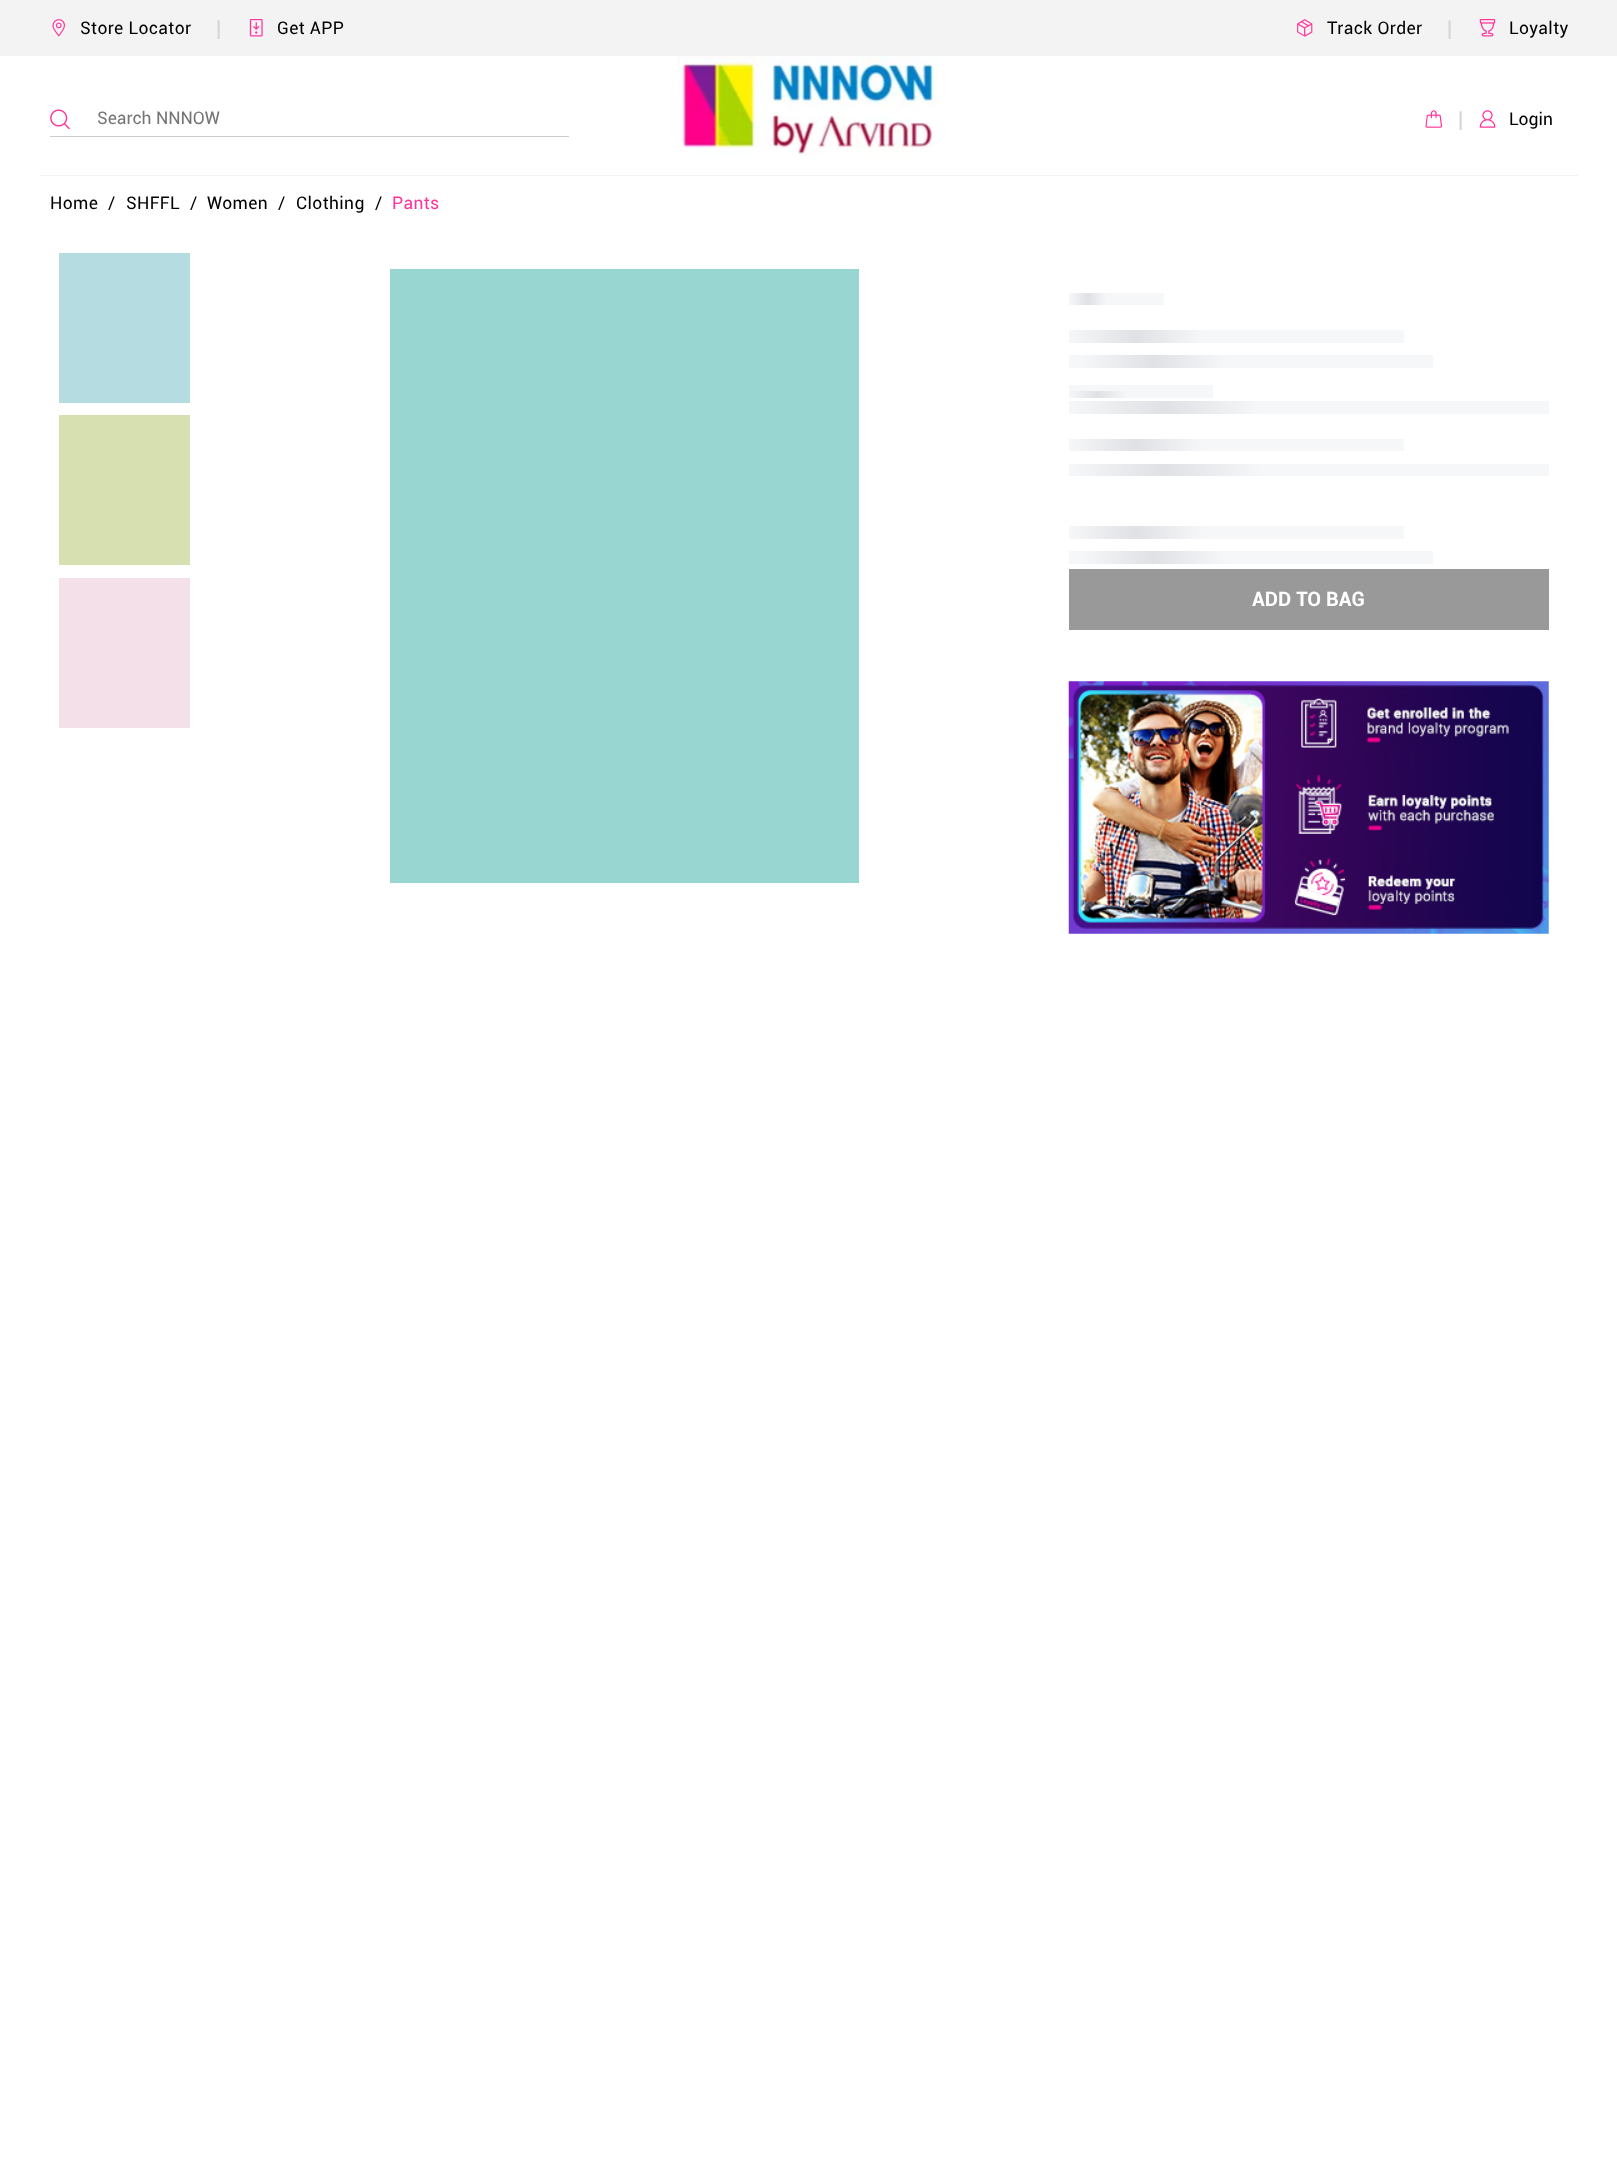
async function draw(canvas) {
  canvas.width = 1617;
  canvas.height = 2171;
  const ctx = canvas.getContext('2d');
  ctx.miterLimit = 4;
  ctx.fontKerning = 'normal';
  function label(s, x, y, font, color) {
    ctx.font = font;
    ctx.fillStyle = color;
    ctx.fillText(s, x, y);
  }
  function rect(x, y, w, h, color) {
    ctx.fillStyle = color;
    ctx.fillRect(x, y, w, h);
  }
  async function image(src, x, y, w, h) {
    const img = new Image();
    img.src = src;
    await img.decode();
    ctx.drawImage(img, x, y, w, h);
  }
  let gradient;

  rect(0, 0, 1617, 2171, '#fff');
  rect(0, 0, 1617, 56, '#f3f3f3');
  await image('assets/img1.png', 52, 19, 13, 18);
  ctx.letterSpacing = '0.4px';
  label('Store Locator', 80, 34, '17.5px Roboto', '#000');
  label('|', 216, 36, '22px Roboto', '#d6d6d6');
  await image('assets/img2.png', 249, 19, 14, 18);
  label('Get APP', 277, 34, '17.5px Roboto', '#000');
  await image('assets/img3.png', 1297, 19, 16, 18);
  label('Track Order', 1327, 34, '17.5px Roboto', '#000');
  label('|', 1447, 36, '22px Roboto', '#d6d6d6');
  await image('assets/img4.png', 1479, 19, 17, 18);
  label('Loyalty', 1509, 34, '17.5px Roboto', '#000');
  await image('assets/img5.png', 677, 56, 261, 100);
  rect(50, 136, 519, 1, '#cfcccc');
  await image('assets/img6.png', 50, 109, 20, 21);
  ctx.letterSpacing = '0px';
  label('Search NNNOW', 97, 124, '17.5px Roboto', '#757575');
  await image('assets/img7.png', 1425, 110, 18, 18);
  ctx.letterSpacing = '0.4px';
  label('|', 1458, 127, '22px Roboto', '#d6d6d6');
  await image('assets/img8.png', 1479, 110, 17, 18);
  ctx.letterSpacing = '0px';
  label('Login', 1509, 125, '17.5px Roboto', '#000');
  rect(40, 175, 1538, 1, '#f3f3f3');
  ctx.letterSpacing = '0.4px';
  label('Home', 50, 209, '17.5px Roboto', '#000');
  label('/', 108, 209, '17.5px Roboto', '#000');
  label('SHFFL', 126, 209, '17.5px Roboto', '#000');
  label('/', 190, 209, '17.5px Roboto', '#000');
  label('Women', 207, 209, '17.5px Roboto', '#000');
  label('/', 278, 209, '17.5px Roboto', '#000');
  label('Clothing', 296, 209, '17.5px Roboto', '#000');
  label('/', 375, 209, '17.5px Roboto', '#000');
  label('Pants', 392, 209, '17.5px Roboto', '#f39');
  rect(59, 253, 131, 150, '#b5dce1');
  rect(59, 415, 131, 150, '#d7e0b1');
  rect(59, 578, 131, 150, '#f4e0e9');
  rect(390, 269, 469, 614, '#98d6d2');
  gradient = ctx.createLinearGradient(1069, 299, 1164, 299);
  gradient.addColorStop(0, '#f6f7f9');
  gradient.addColorStop(0.2, '#dfe1e4');
  gradient.addColorStop(0.4, '#f6f7f9');
  gradient.addColorStop(1, '#f6f7f9');
  ctx.fillStyle = gradient;
  ctx.fillRect(1069, 293, 95, 12);
  gradient = ctx.createLinearGradient(1069, 336, 1404, 336);
  gradient.addColorStop(0, '#f6f7f9');
  gradient.addColorStop(0.2, '#dfe1e4');
  gradient.addColorStop(0.4, '#f6f7f9');
  gradient.addColorStop(1, '#f6f7f9');
  ctx.fillStyle = gradient;
  ctx.fillRect(1069, 330, 335, 13);
  rect(1069, 355, 12, 13, '#f6f7f9');
  gradient = ctx.createLinearGradient(1081, 361, 1445, 361);
  gradient.addColorStop(0, '#f6f7f9');
  gradient.addColorStop(0.2, '#dfe1e4');
  gradient.addColorStop(0.4, '#f6f7f9');
  gradient.addColorStop(1, '#f6f7f9');
  ctx.fillStyle = gradient;
  ctx.fillRect(1081, 355, 352, 13);
  rect(1069, 385, 144, 6, '#f6f7f9');
  gradient = ctx.createLinearGradient(1069, 398, 1213, 398);
  gradient.addColorStop(0, '#f6f7f9');
  gradient.addColorStop(0.2, '#dfe1e4');
  gradient.addColorStop(0.4, '#f6f7f9');
  gradient.addColorStop(1, '#f6f7f9');
  ctx.fillStyle = gradient;
  ctx.fillRect(1069, 391, 144, 7);
  gradient = ctx.createLinearGradient(1069, 408, 1549, 408);
  gradient.addColorStop(0, '#f6f7f9');
  gradient.addColorStop(0.2, '#dfe1e4');
  gradient.addColorStop(0.4, '#f6f7f9');
  gradient.addColorStop(1, '#f6f7f9');
  ctx.fillStyle = gradient;
  ctx.fillRect(1069, 401, 480, 13);
  gradient = ctx.createLinearGradient(1069, 445, 1404, 445);
  gradient.addColorStop(0, '#f6f7f9');
  gradient.addColorStop(0.2, '#dfe1e4');
  gradient.addColorStop(0.4, '#f6f7f9');
  gradient.addColorStop(1, '#f6f7f9');
  ctx.fillStyle = gradient;
  ctx.fillRect(1069, 439, 335, 12);
  gradient = ctx.createLinearGradient(1069, 470, 1549, 470);
  gradient.addColorStop(0, '#f6f7f9');
  gradient.addColorStop(0.2, '#dfe1e4');
  gradient.addColorStop(0.4, '#f6f7f9');
  gradient.addColorStop(1, '#f6f7f9');
  ctx.fillStyle = gradient;
  ctx.fillRect(1069, 464, 480, 12);
  gradient = ctx.createLinearGradient(1069, 533, 1404, 533);
  gradient.addColorStop(0, '#f6f7f9');
  gradient.addColorStop(0.2, '#dfe1e4');
  gradient.addColorStop(0.4, '#f6f7f9');
  gradient.addColorStop(1, '#f6f7f9');
  ctx.fillStyle = gradient;
  ctx.fillRect(1069, 526, 335, 13);
  rect(1069, 551, 12, 13, '#f6f7f9');
  gradient = ctx.createLinearGradient(1081, 558, 1445, 558);
  gradient.addColorStop(0, '#f6f7f9');
  gradient.addColorStop(0.2, '#dfe1e4');
  gradient.addColorStop(0.4, '#f6f7f9');
  gradient.addColorStop(1, '#f6f7f9');
  ctx.fillStyle = gradient;
  ctx.fillRect(1081, 551, 352, 13);
  rect(1069, 569, 480, 61, '#999');
  ctx.letterSpacing = '0px';
  label('ADD TO BAG', 1252, 606, 'bold 20px Roboto', '#fff');
  await image('assets/img9.png', 1068, 681, 481, 253);
}

draw(document.querySelector('canvas'));
